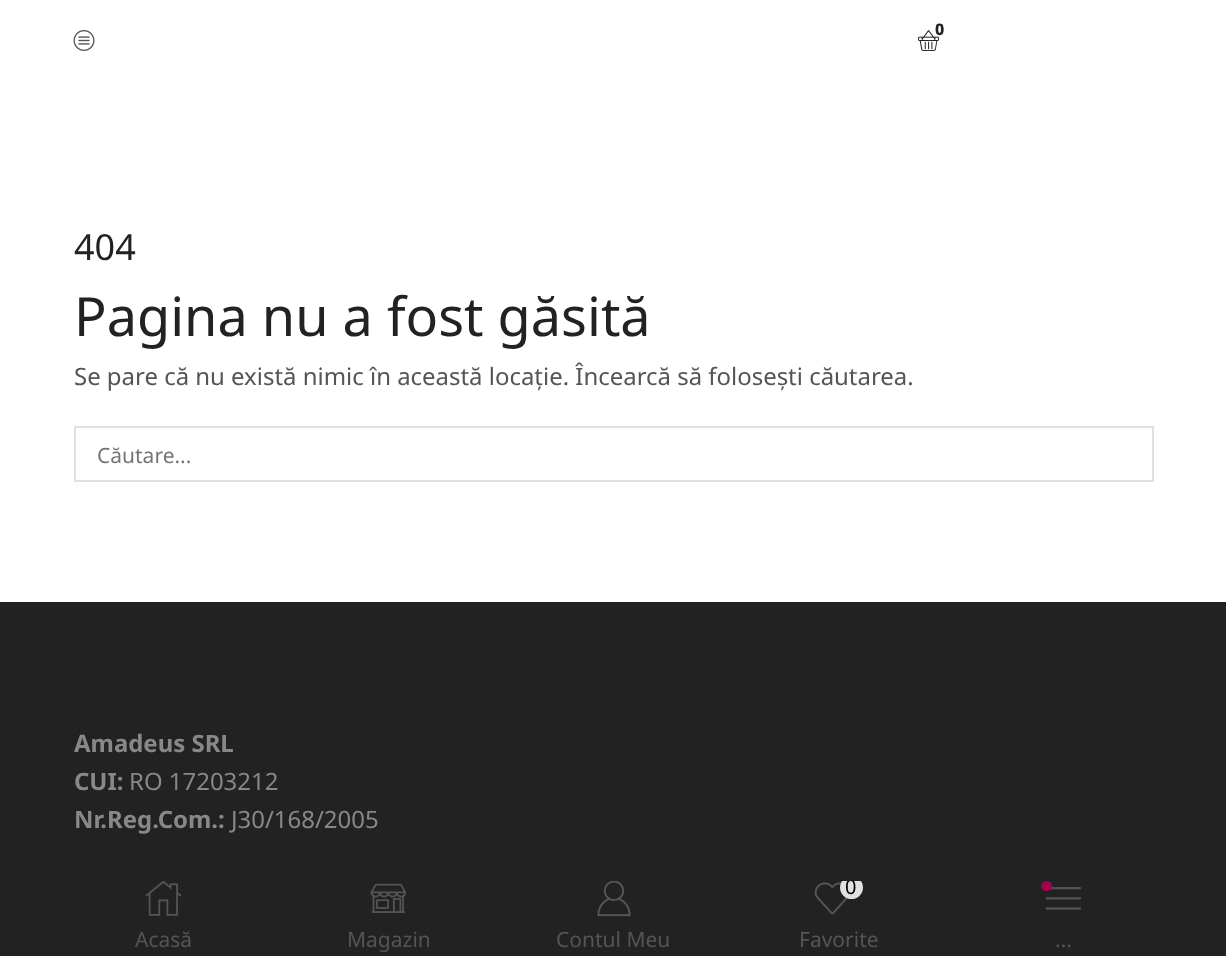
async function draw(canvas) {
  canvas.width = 1226;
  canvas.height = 956;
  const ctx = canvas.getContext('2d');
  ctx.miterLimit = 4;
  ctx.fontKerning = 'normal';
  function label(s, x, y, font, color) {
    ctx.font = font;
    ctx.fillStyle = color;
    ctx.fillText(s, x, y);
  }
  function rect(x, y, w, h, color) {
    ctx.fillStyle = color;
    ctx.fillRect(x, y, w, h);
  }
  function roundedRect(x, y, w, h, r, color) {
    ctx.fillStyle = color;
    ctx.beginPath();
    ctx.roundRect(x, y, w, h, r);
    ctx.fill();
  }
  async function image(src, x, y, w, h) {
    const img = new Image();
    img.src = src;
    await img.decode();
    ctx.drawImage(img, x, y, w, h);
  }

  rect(0, 0, 1226, 956, '#fff');
  await image('assets/img1.png', 73, 30, 22, 21);
  await image('assets/img2.png', 918, 30, 21, 21);
  label('0', 935, 35, '800 16px Noto Sans', '#222');
  label('404', 74, 260, '36px Noto Sans', '#222');
  label('Pagina nu a fost găsită', 74, 336, '54px Noto Sans', '#222');
  label('Se pare că nu există nimic în această locație. Încearcă să folosești căutarea.', 74, 385, '23.95px Noto Sans', '#555');
  ctx.strokeStyle = '#e1e1e1';
  ctx.lineWidth = 2;
  ctx.strokeRect(75, 427, 1078, 54);
  label('Căutare...', 97, 463, '21px Noto Sans', '#757575');
  rect(0, 602, 1226, 354, '#222');
  label('Amadeus SRL', 74, 752, 'bold 23.95px Noto Sans', '#888');
  label('CUI:', 74, 790, 'bold 23.95px Noto Sans', '#888');
  label('RO 17203212', 129, 790, '23.95px Noto Sans', '#888');
  label('Nr.Reg.Com.:', 74, 828, 'bold 23.95px Noto Sans', '#888');
  label('J30/168/2005', 231, 828, '23.95px Noto Sans', '#888');
  await image('assets/img3.png', 145, 881, 37, 35);
  label('Acasă', 135, 947, '21px Noto Sans', '#555');
  await image('assets/img4.png', 370, 883, 37, 30);
  label('Magazin', 347, 947, '21px Noto Sans', '#555');
  await image('assets/img5.png', 597, 881, 34, 36);
  label('Contul Meu', 556, 947, '21px Noto Sans', '#555');
  await image('assets/img6.png', 814, 882, 34, 33);
  ctx.save();
  ctx.beginPath();
  ctx.rect(51, 881, 1125, 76);
  ctx.clip();
  ctx.fillStyle = '#e1e1e1';
  ctx.beginPath();
  ctx.arc(851.5, 887.5, 11.5, 0, 2 * Math.PI);
  ctx.fill();
  label('0', 845, 894, '20px Noto Sans', '#000');
  ctx.restore();
  label('Favorite', 799, 947, '21px Noto Sans', '#555');
  await image('assets/img7.png', 1045, 887, 36, 23);
  roundedRect(1041, 881, 11, 10, 5, '#a4004f');
  label('...', 1055, 947, '21px Noto Sans', '#555');
}

draw(document.querySelector('canvas'));
